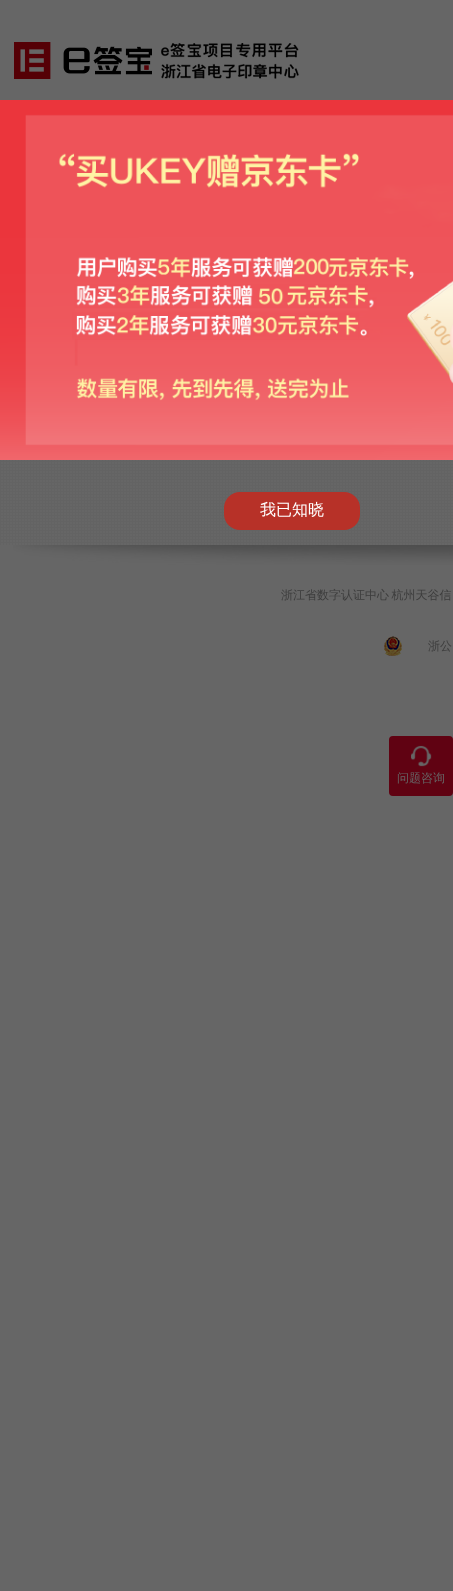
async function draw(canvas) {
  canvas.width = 453;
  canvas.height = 1591;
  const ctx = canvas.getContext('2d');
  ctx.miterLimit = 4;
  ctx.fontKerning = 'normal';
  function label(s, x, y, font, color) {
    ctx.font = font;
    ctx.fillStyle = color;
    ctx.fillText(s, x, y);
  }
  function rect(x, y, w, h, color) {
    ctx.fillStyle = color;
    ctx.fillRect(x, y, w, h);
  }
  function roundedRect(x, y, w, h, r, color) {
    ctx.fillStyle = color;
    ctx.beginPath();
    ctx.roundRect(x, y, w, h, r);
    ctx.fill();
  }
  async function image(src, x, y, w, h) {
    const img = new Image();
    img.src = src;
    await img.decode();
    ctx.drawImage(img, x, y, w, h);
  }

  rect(0, 0, 453, 1591, '#666');
  await image('assets/img1.png', 14, 42, 285, 37);
  await image('assets/img2.png', 0, 460, 453, 85);
  await image('assets/img3.png', 0, 100, 453, 360);
  roundedRect(224, 492, 136, 38, 16, '#b73128');
  label('我已知晓', 260, 515, '500 16px WenQuanYi Zen Hei', '#fff');
  roundedRect(389, 736, 64, 60, 4, '#600212');
  await image('assets/img4.png', 411, 745, 21, 22);
  label('问题咨询', 397, 782, '500 12px WenQuanYi Zen Hei', '#666');
  await image('assets/img5.png', 13, 545, 440, 20);
  ctx.wordSpacing = '-1px';
  label('浙江省数字认证中心 杭州天谷信', 281, 599, '500 12px WenQuanYi Zen Hei', '#3d3d3d');
  await image('assets/img6.png', 384, 636, 18, 20);
  ctx.wordSpacing = '0px';
  label('浙公', 428, 650, '500 12px WenQuanYi Zen Hei', '#3d3d3d');
}

draw(document.querySelector('canvas'));
